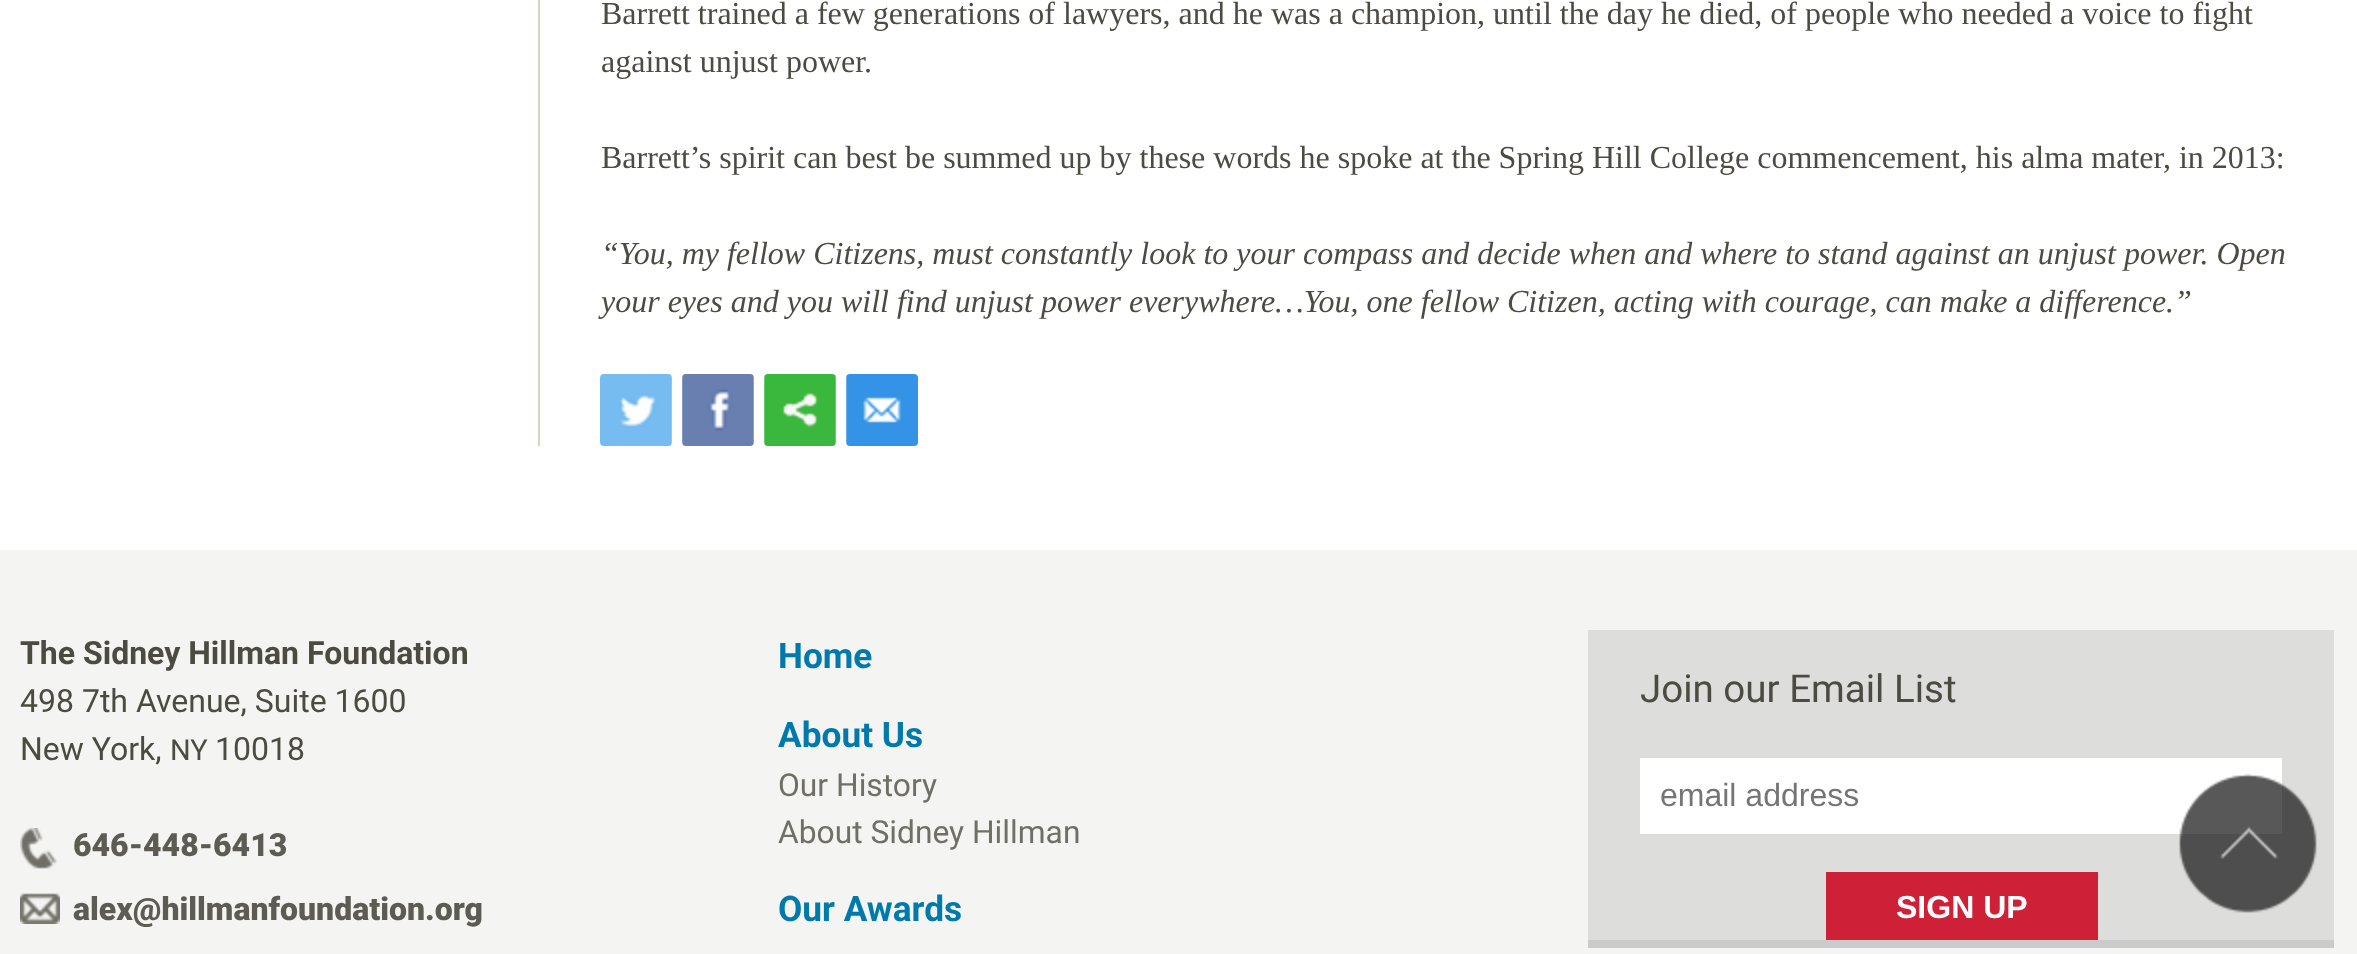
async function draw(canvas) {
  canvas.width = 2357;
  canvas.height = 954;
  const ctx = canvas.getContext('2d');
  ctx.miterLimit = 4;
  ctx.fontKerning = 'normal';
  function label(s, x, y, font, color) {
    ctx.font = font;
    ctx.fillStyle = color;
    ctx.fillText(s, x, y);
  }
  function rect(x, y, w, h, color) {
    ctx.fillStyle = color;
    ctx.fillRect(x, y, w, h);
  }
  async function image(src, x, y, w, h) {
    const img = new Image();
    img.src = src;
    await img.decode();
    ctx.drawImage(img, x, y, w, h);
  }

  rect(0, 0, 2357, 954, '#fff');
  rect(538, 0, 2, 446, '#d7d4bf');
  label('Barrett trained a few generations of lawyers, and he was a champion, until the day he died, of people who needed a voice to fight', 601, 24, '32px Liberation Serif', '#4c4b42');
  label('against unjust power.', 601, 72, '32px Liberation Serif', '#4c4b42');
  label('Barrett’s spirit can best be summed up by these words he spoke at the Spring Hill College commencement, his alma mater, in 2013:', 601, 168, '32px Liberation Serif', '#4c4b42');
  label('“You, my fellow Citizens, must constantly look to your compass and decide when and where to stand against an unjust power. Open', 601, 264, 'italic 32px Liberation Serif', '#4c4b42');
  label('your eyes and you will find unjust power everywhere…You, one fellow Citizen, acting with courage, can make a difference.”', 601, 312, 'italic 32px Liberation Serif', '#4c4b42');
  await image('assets/img1.png', 600, 374, 72, 72);
  await image('assets/img2.png', 682, 374, 72, 72);
  await image('assets/img3.png', 764, 374, 72, 72);
  await image('assets/img4.png', 846, 374, 72, 72);
  rect(0, 550, 2357, 404, '#f4f4f3');
  label('The Sidney Hillman Foundation', 20, 664, 'bold 32px Roboto', '#4c4b42');
  label('498 7th Avenue, Suite 1600', 20, 712, '32px Roboto', '#4c4b42');
  label('New York,', 20, 760, '32px Roboto', '#4c4b42');
  label('NY', 170, 760, '29px Roboto', '#4c4b42');
  label('10018', 215, 760, '32px Roboto', '#4c4b42');
  await image('assets/img5.png', 20, 828, 37, 41);
  label('646-448-6413', 73, 856, '900 32px Roboto', '#5d5c54');
  await image('assets/img6.png', 20, 893, 40, 31);
  label('alex@hillmanfoundation.org', 73, 920, '900 32px Roboto', '#5d5c54');
  label('Home', 778, 668, 'bold 35.25px Roboto', '#007aac');
  label('About Us', 778, 747, 'bold 35.25px Roboto', '#007aac');
  label('Our History', 778, 796, '31.75px Roboto', '#706f67');
  label('About Sidney Hillman', 778, 843, '31.75px Roboto', '#706f67');
  label('Our Awards', 778, 921, 'bold 35.25px Roboto', '#007aac');
  rect(1588, 630, 746, 310, '#dddddc');
  rect(1588, 940, 746, 8, '#cbcbcb');
  label('Join our Email List', 1640, 702, '38.5px Roboto', '#4c4b42');
  rect(1640, 758, 642, 76, '#fff');
  label('email address', 1660, 806, '32px Liberation Sans', '#757575');
  rect(1826, 872, 272, 68, '#ce2037');
  label('SIGN UP', 1896, 918, 'bold 32px Liberation Sans', '#fff');
  await image('assets/img7.png', 2178, 774, 139, 139);
}

draw(document.querySelector('canvas'));
